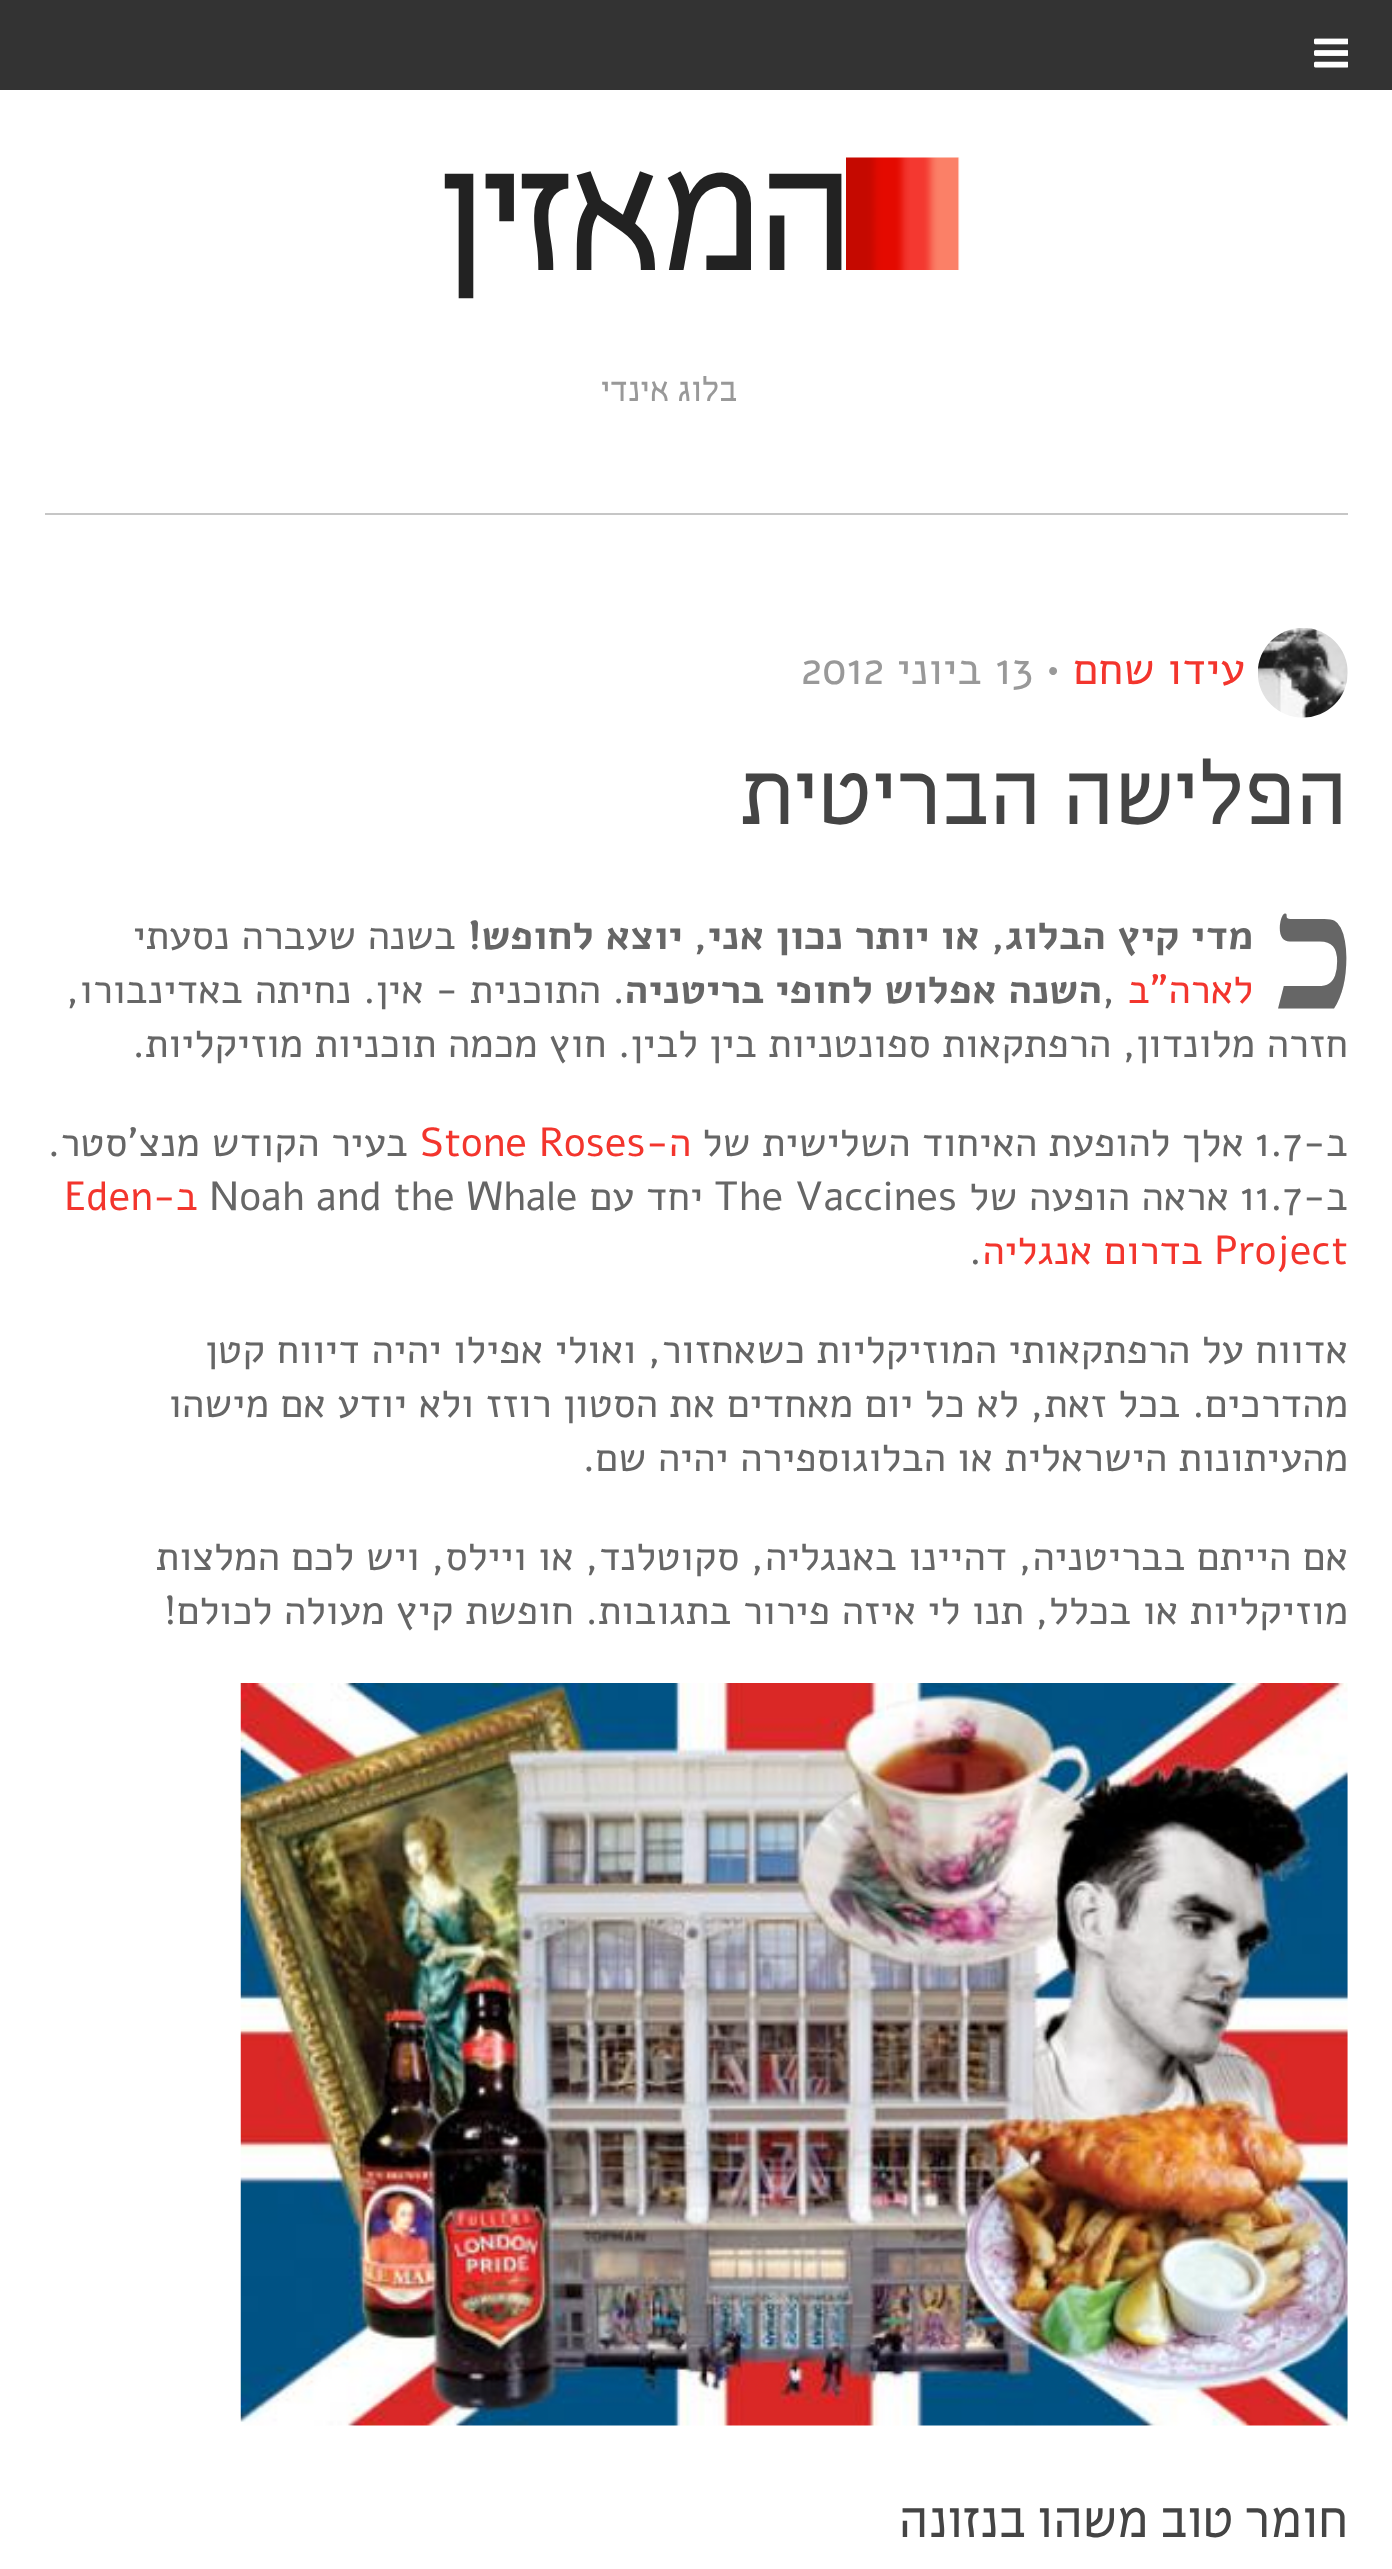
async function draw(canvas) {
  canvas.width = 1392;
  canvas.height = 2569;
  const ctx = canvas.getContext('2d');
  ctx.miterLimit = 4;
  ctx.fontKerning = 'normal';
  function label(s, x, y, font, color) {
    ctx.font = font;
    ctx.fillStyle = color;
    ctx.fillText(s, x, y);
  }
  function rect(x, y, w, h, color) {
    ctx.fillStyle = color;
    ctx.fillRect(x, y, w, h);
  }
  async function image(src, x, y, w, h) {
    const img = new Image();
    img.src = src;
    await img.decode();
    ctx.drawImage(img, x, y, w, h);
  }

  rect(0, 0, 1392, 2569, '#fff');
  rect(0, 0, 1392, 90, '#333');
  await image('assets/img1.png', 1314, 38, 34, 30);
  await image('assets/img2.png', 846, 157, 114, 113);
  ctx.letterSpacing = '-9px';
  ctx.direction = 'rtl';
  label('המאזין', 847, 270, '180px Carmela', '#222');
  ctx.letterSpacing = '0px';
  label('בלוג אינדי', 737, 401, '36px Carmela', '#999');
  rect(45, 513, 1303, 2, '#c6c6c6');
  await image('assets/img3.png', 1258, 628, 90, 90);
  label('עידו שחם', 1245, 684, '45px Alef', '#f3352d');
  ctx.direction = 'ltr';
  label('•', 1046, 684, '45px Alef', '#999');
  label('13', 995, 684, '45px Alef', '#999');
  ctx.direction = 'rtl';
  label('ביוני', 982, 684, '45px Alef', '#999');
  ctx.direction = 'ltr';
  label('2012', 801, 684, '45px Alef', '#999');
  ctx.direction = 'rtl';
  label('הפלישה הבריטית', 1348, 824, '94.5px Carmela', '#444');
  label('כ', 1355, 1009, '900 162px Noto Sans', '#666');
  label('מדי קיץ הבלוג, או יותר נכון אני, יוצא לחופש!', 1253, 949, 'bold 40.5px Alef', '#666');
  label('בשנה שעברה נסעתי', 456, 949, '40.5px Alef', '#666');
  label('לארה"ב', 1253, 1003, '40.5px Alef', '#f3352d');
  ctx.direction = 'ltr';
  label(',', 1102, 1003, '40.5px Alef', '#666');
  ctx.direction = 'rtl';
  label('השנה אפלוש לחופי בריטניה', 1102, 1003, 'bold 40.5px Alef', '#666');
  label('. התוכנית - אין. נחיתה באדינבורו,', 625, 1003, '40.5px Alef', '#666');
  label('חזרה מלונדון, הרפתקאות ספונטניות בין לבין. חוץ מכמה תוכניות מוזיקליות.', 1348, 1057, '40.5px Alef', '#666');
  label('ב-', 1348, 1156, '40.5px Alef', '#666');
  ctx.direction = 'ltr';
  label('1.7', 1255, 1156, '40.5px Alef', '#666');
  ctx.direction = 'rtl';
  label('אלך להופעת האיחוד השלישית של', 1244, 1156, '40.5px Alef', '#666');
  label('ה-', 691, 1156, '40.5px Alef', '#f3352d');
  ctx.direction = 'ltr';
  label('Stone Roses', 420, 1156, '40.5px Alef', '#f3352d');
  ctx.direction = 'rtl';
  label('בעיר הקודש מנצ\'סטר.', 408, 1156, '40.5px Alef', '#666');
  label('ב-', 1348, 1210, '40.5px Alef', '#666');
  ctx.direction = 'ltr';
  label('11.7', 1240, 1210, '40.5px Alef', '#666');
  ctx.direction = 'rtl';
  label('אראה הופעה של', 1229, 1210, '40.5px Alef', '#666');
  ctx.direction = 'ltr';
  label('The Vaccines', 714, 1210, '40.5px Alef', '#666');
  ctx.direction = 'rtl';
  label('יחד עם', 703, 1210, '40.5px Alef', '#666');
  ctx.direction = 'ltr';
  label('Noah and the Whale', 209, 1210, '40.5px Alef', '#666');
  ctx.direction = 'rtl';
  label('ב-', 198, 1210, '40.5px Alef', '#f3352d');
  ctx.direction = 'ltr';
  label('Eden', 64, 1210, '40.5px Alef', '#f3352d');
  label('Project', 1214, 1264, '40.5px Alef', '#f3352d');
  ctx.direction = 'rtl';
  label('בדרום אנגליה', 1203, 1264, '40.5px Alef', '#f3352d');
  ctx.direction = 'ltr';
  label('.', 969, 1264, '40.5px Alef', '#666');
  ctx.direction = 'rtl';
  label('אדווח על הרפתקאותי המוזיקליות כשאחזור, ואולי אפילו יהיה דיווח קטן', 1348, 1363, '40.5px Alef', '#666');
  label('מהדרכים. בכל זאת, לא כל יום מאחדים את הסטון רוזז ולא יודע אם מישהו', 1348, 1417, '40.5px Alef', '#666');
  label('מהעיתונות הישראלית או הבלוגוספירה יהיה שם.', 1348, 1471, '40.5px Alef', '#666');
  label('אם הייתם בבריטניה, דהיינו באנגליה, סקוטלנד, או ויילס, ויש לכם המלצות', 1348, 1570, '40.5px Alef', '#666');
  label('מוזיקליות או בכלל, תנו לי איזה פירור בתגובות. חופשת קיץ מעולה לכולם!', 1348, 1624, '40.5px Alef', '#666');
  await image('assets/img4.png', 240, 1683, 1108, 743);
  label('חומר טוב משהו בנזונה', 1348, 2537, '54px Carmela', '#444');
}

draw(document.querySelector('canvas'));
